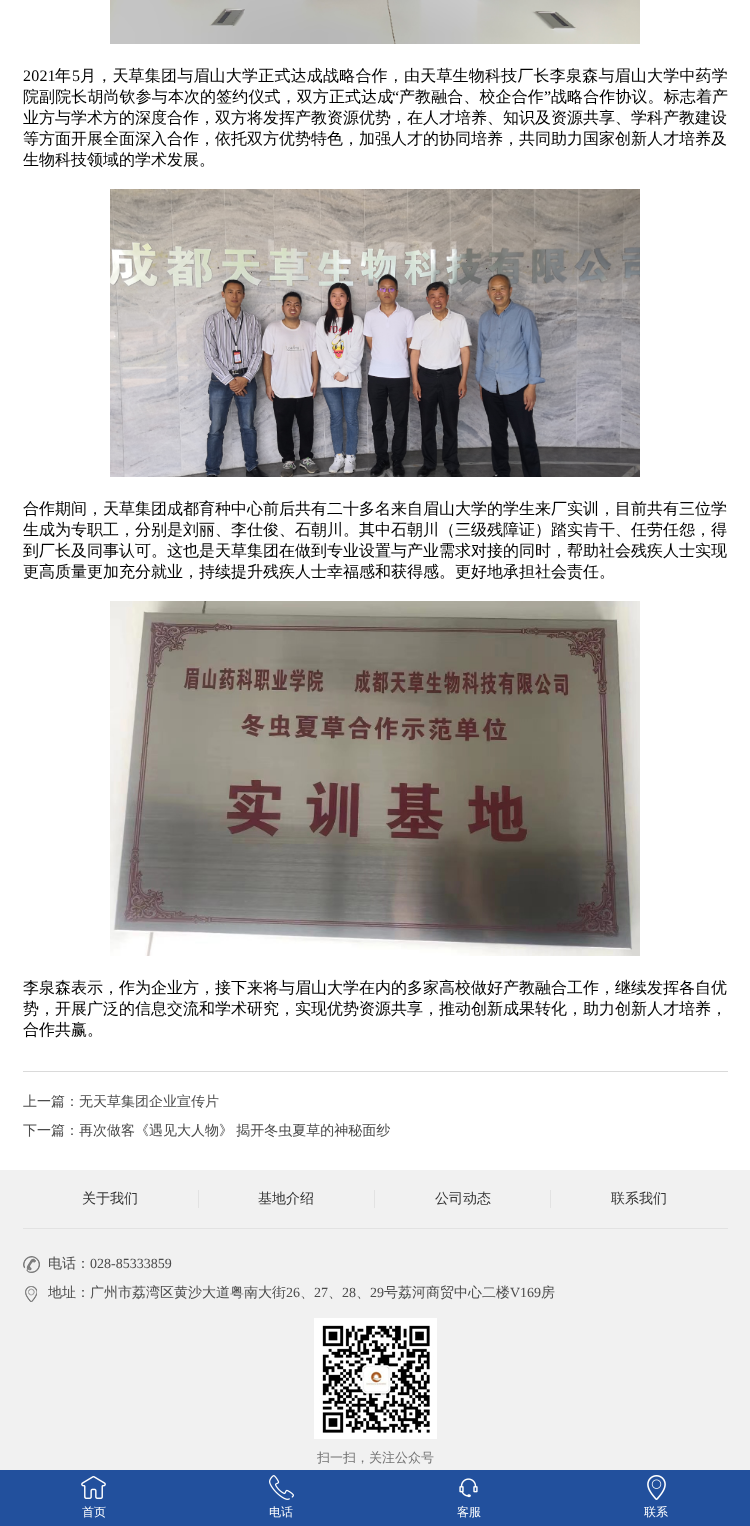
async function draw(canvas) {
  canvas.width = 750;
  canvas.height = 1526;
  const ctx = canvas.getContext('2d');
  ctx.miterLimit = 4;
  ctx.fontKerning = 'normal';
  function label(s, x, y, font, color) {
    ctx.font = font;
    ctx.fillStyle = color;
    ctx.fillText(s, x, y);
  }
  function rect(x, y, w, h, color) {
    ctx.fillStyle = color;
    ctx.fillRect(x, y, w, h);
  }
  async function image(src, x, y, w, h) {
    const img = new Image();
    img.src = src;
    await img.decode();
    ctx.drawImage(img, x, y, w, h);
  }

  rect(0, 0, 750, 1526, '#fff');
  rect(23, 1071, 705, 1, '#dadada');
  await image('assets/img1.png', 110, 0, 530, 44);
  ctx.letterSpacing = '0.2px';
  label('2021', 23, 81, '16px Liberation Serif', '#000');
  label('年', 55, 81, '500 16px WenQuanYi Zen Hei', '#000');
  label('5', 72, 81, '16px Liberation Serif', '#000');
  label('月，天草集团与眉山大学正式达成战略合作，由天草生物科技厂长李泉森与眉山大学中药学', 80, 81, '500 16px WenQuanYi Zen Hei', '#000');
  ctx.letterSpacing = '0.1px';
  label('院副院长胡尚钦参与本次的签约仪式，双方正式达成', 23, 102, '500 16px WenQuanYi Zen Hei', '#000');
  label('“', 392, 102, '16px Liberation Serif', '#000');
  label('产教融合、校企合作', 399, 102, '500 16px WenQuanYi Zen Hei', '#000');
  label('”', 544, 102, '16px Liberation Serif', '#000');
  label('战略合作协议。标志着产', 551, 102, '500 16px WenQuanYi Zen Hei', '#000');
  ctx.letterSpacing = '0px';
  label('业方与学术方的深度合作，双方将发挥产教资源优势，在人才培养、知识及资源共享、学科产教建设', 23, 123, '500 16px WenQuanYi Zen Hei', '#000');
  label('等方面开展全面深入合作，依托双方优势特色，加强人才的协同培养，共同助力国家创新人才培养及', 23, 144, '500 16px WenQuanYi Zen Hei', '#000');
  label('生物科技领域的学术发展。', 23, 165, '500 16px WenQuanYi Zen Hei', '#000');
  await image('assets/img2.png', 110, 189, 530, 288);
  label('合作期间，天草集团成都育种中心前后共有二十多名来自眉山大学的学生来厂实训，目前共有三位学', 23, 514, '500 16px WenQuanYi Zen Hei', '#000');
  label('生成为专职工，分别是刘丽、李仕俊、石朝川。其中石朝川（三级残障证）踏实肯干、任劳任怨，得', 23, 535, '500 16px WenQuanYi Zen Hei', '#000');
  label('到厂长及同事认可。这也是天草集团在做到专业设置与产业需求对接的同时，帮助社会残疾人士实现', 23, 556, '500 16px WenQuanYi Zen Hei', '#000');
  label('更高质量更加充分就业，持续提升残疾人士幸福感和获得感。更好地承担社会责任。', 23, 577, '500 16px WenQuanYi Zen Hei', '#000');
  await image('assets/img3.png', 110, 601, 530, 355);
  label('李泉森表示，作为企业方，接下来将与眉山大学在内的多家高校做好产教融合工作，继续发挥各自优', 23, 993, '500 16px WenQuanYi Zen Hei', '#000');
  label('势，开展广泛的信息交流和学术研究，实现优势资源共享，推动创新成果转化，助力创新人才培养，', 23, 1014, '500 16px WenQuanYi Zen Hei', '#000');
  label('合作共赢。', 23, 1035, '500 16px WenQuanYi Zen Hei', '#000');
  label('上一篇：无天草集团企业宣传片', 23, 1106, '500 14px WenQuanYi Zen Hei', '#4b4b4b');
  ctx.wordSpacing = '-1px';
  label('下一篇：再次做客《遇见大人物》 揭开冬虫夏草的神秘面纱', 23, 1135, '500 14px WenQuanYi Zen Hei', '#4b4b4b');
  rect(0, 1170, 750, 300, '#f1f1f1');
  rect(23, 1228, 705, 1, '#e2e2e2');
  rect(198, 1190, 1, 18, '#e2e2e2');
  ctx.wordSpacing = '0px';
  label('关于我们', 82, 1203, '500 14px WenQuanYi Zen Hei', '#333');
  rect(374, 1190, 1, 18, '#e2e2e2');
  label('基地介绍', 258, 1203, '500 14px WenQuanYi Zen Hei', '#333');
  rect(550, 1190, 1, 18, '#e2e2e2');
  label('公司动态', 435, 1203, '500 14px WenQuanYi Zen Hei', '#333');
  label('联系我们', 611, 1203, '500 14px WenQuanYi Zen Hei', '#333');
  await image('assets/img4.png', 23, 1256, 17, 17);
  label('电话：', 48, 1268, '500 14px WenQuanYi Zen Hei', '#4b4b4b');
  label('028-85333859', 90, 1268, '14px Liberation Serif', '#4b4b4b');
  await image('assets/img5.png', 25, 1286, 12, 16);
  label('地址：广州市荔湾区黄沙大道粤南大街', 48, 1297, '500 14px WenQuanYi Zen Hei', '#4b4b4b');
  label('26', 286, 1297, '14px Liberation Serif', '#4b4b4b');
  label('、', 300, 1297, '500 14px WenQuanYi Zen Hei', '#4b4b4b');
  label('27', 314, 1297, '14px Liberation Serif', '#4b4b4b');
  label('、', 328, 1297, '500 14px WenQuanYi Zen Hei', '#4b4b4b');
  label('28', 342, 1297, '14px Liberation Serif', '#4b4b4b');
  label('、', 356, 1297, '500 14px WenQuanYi Zen Hei', '#4b4b4b');
  label('29', 370, 1297, '14px Liberation Serif', '#4b4b4b');
  label('号荔河商贸中心二楼', 384, 1297, '500 14px WenQuanYi Zen Hei', '#4b4b4b');
  label('V169', 510, 1297, '14px Liberation Serif', '#4b4b4b');
  label('房', 541, 1297, '500 14px WenQuanYi Zen Hei', '#4b4b4b');
  await image('assets/img6.png', 314, 1318, 123, 121);
  label('扫一扫，关注公众号', 317, 1462, '500 13px WenQuanYi Zen Hei', '#737373');
  rect(0, 1470, 750, 56, '#22509d');
  await image('assets/img7.png', 81, 1476, 25, 24);
  label('首页', 82, 1516, '500 12px WenQuanYi Zen Hei', '#fff');
  await image('assets/img8.png', 269, 1475, 25, 25);
  label('电话', 269, 1516, '500 12px WenQuanYi Zen Hei', '#fff');
  await image('assets/img9.png', 459, 1478, 19, 20);
  label('客服', 457, 1516, '500 12px WenQuanYi Zen Hei', '#fff');
  await image('assets/img10.png', 647, 1475, 19, 25);
  label('联系', 644, 1516, '500 12px WenQuanYi Zen Hei', '#fff');
}

draw(document.querySelector('canvas'));
